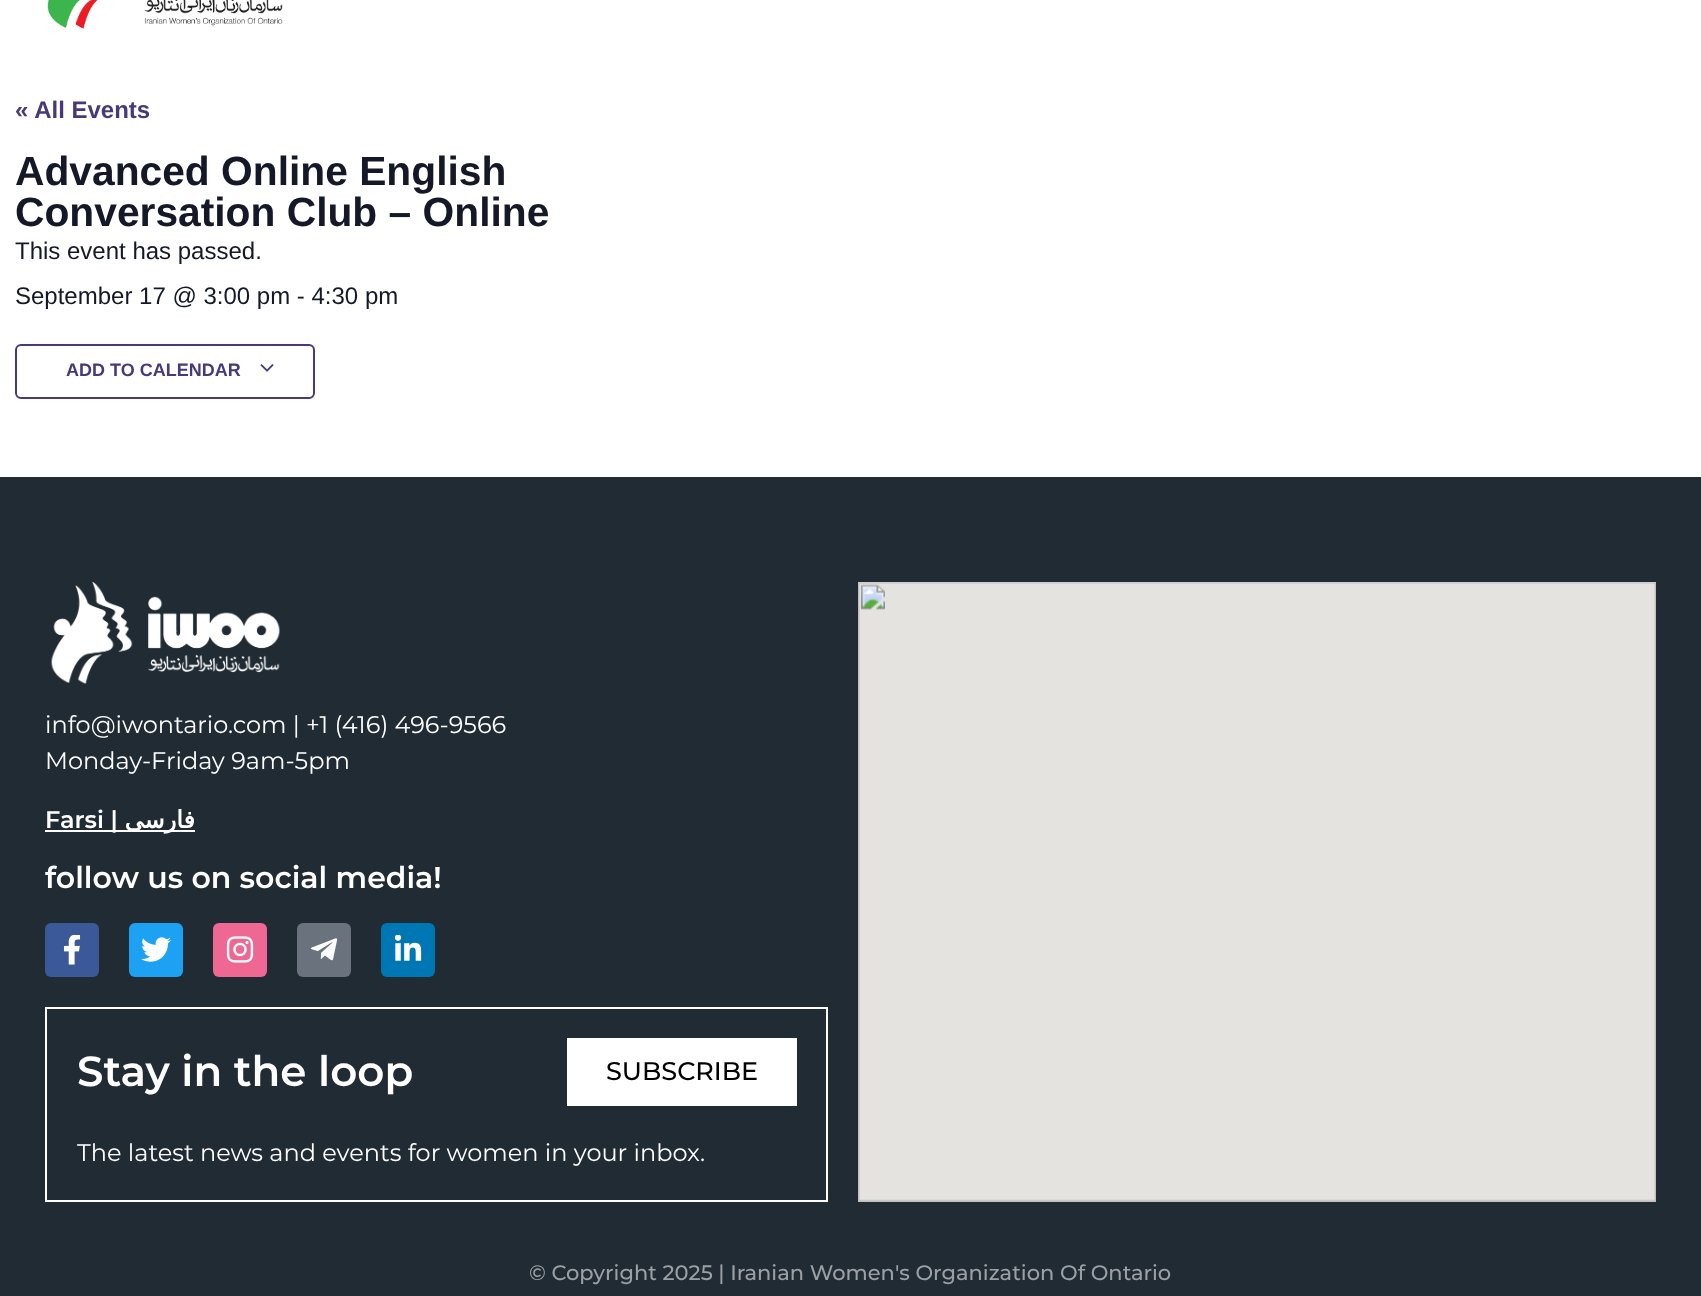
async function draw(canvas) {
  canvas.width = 1701;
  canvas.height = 1296;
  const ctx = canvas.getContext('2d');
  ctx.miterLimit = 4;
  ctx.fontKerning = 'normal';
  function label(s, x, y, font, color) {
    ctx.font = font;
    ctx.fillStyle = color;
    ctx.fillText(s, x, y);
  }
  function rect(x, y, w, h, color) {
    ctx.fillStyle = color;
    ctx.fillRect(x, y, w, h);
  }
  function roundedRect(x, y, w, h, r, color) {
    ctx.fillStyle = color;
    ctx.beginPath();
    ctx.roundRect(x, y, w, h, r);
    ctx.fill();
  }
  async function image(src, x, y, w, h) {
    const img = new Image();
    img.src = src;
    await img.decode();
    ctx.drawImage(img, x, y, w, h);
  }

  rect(0, 0, 1701, 1296, '#fff');
  await image('assets/img1.png', 47, 0, 236, 29);
  label('« All Events', 15, 118, 'bold 24px Liberation Sans', '#493979');
  label('Advanced Online English', 15, 185, 'bold 40.75px Liberation Sans', '#141827');
  label('Conversation Club – Online', 15, 226, 'bold 40.75px Liberation Sans', '#141827');
  label('This event has passed.', 15, 259, '24px Liberation Sans', '#141827');
  label('September 17 @ 3:00 pm - 4:30 pm', 15, 304, '24px Liberation Sans', '#141827');
  ctx.beginPath();
  ctx.roundRect(16, 345, 298, 53, 5);
  ctx.strokeStyle = '#493979';
  ctx.lineWidth = 2;
  ctx.stroke();
  label('ADD TO CALENDAR', 66, 376, 'bold 18px Liberation Sans', '#493979');
  await image('assets/img2.png', 260, 364, 14, 8);
  rect(0, 477, 1701, 819, '#212b34');
  await image('assets/img3.png', 51, 582, 229, 102);
  label('info@iwontario.com | +1 (416) 496-9566', 45, 733, '24px Montserrat', '#fff');
  label('Monday-Friday 9am-5pm', 45, 769, '24px Montserrat', '#fff');
  rect(45, 830, 150, 2, '#fff');
  label('Farsi |', 45, 828, '600 24px Montserrat', '#fff');
  ctx.direction = 'rtl';
  label('فارسی', 195, 828, 'bold 24px DejaVu Sans', '#fff');
  ctx.direction = 'ltr';
  label('follow us on social media!', 45, 888, '600 30px Montserrat', '#fff');
  roundedRect(45, 923, 54, 54, 6, '#3b5998');
  await image('assets/img4.png', 63, 935, 18, 30);
  roundedRect(129, 923, 54, 54, 6, '#1da1f2');
  await image('assets/img5.png', 141, 937, 30, 25);
  roundedRect(213, 923, 54, 54, 6, '#ef6894');
  await image('assets/img6.png', 226, 936, 28, 27);
  roundedRect(297, 923, 54, 54, 6, '#69727d');
  await image('assets/img7.png', 310, 938, 28, 23);
  roundedRect(381, 923, 54, 54, 6, '#0077b5');
  await image('assets/img8.png', 394, 935, 28, 26);
  ctx.strokeStyle = '#fff';
  ctx.strokeRect(46, 1008, 781, 193);
  label('Stay in the loop', 77, 1086, '600 42px Montserrat', '#fff');
  rect(567, 1038, 230, 68, '#fff');
  label('SUBSCRIBE', 606, 1080, '500 25.5px Montserrat', '#000');
  label('The latest news and events for women in your inbox.', 77, 1161, '24px Montserrat', '#fff');
  await image('assets/img9.png', 858, 582, 798, 620);
  label('© Copyright 2025 | Iranian Women\'s Organization Of Ontario', 529, 1280, '500 21px Montserrat', '#9ba0a4');
}

draw(document.querySelector('canvas'));
